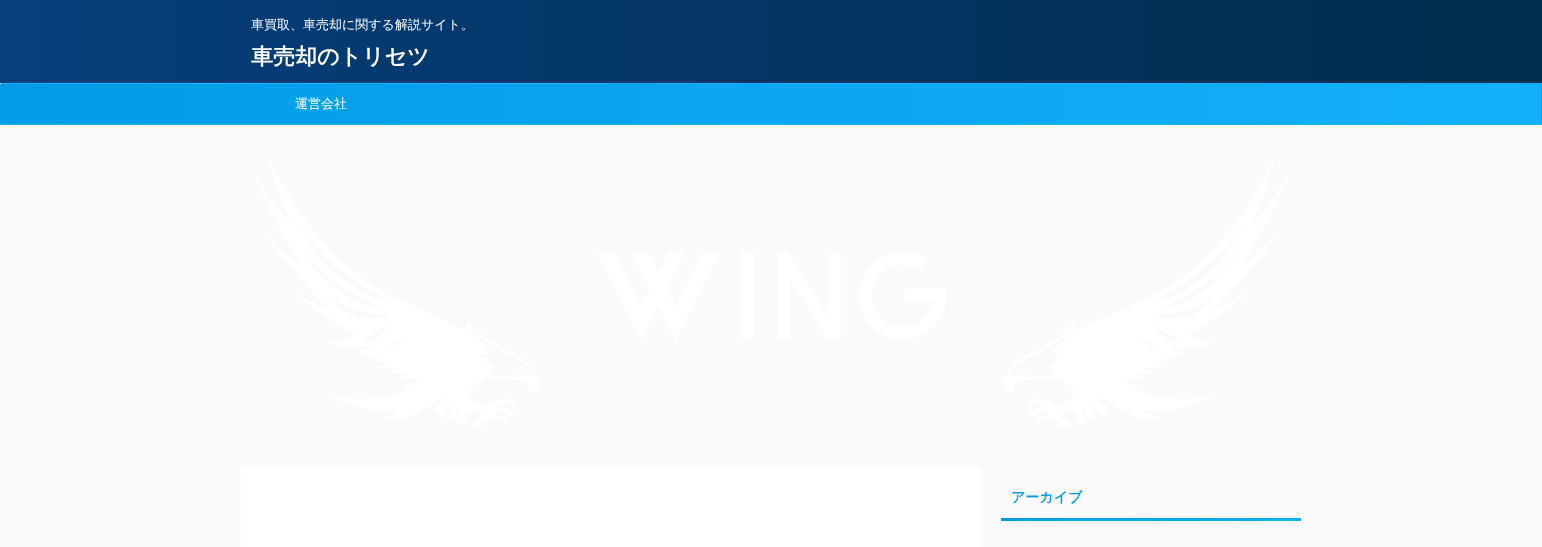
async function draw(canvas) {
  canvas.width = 1542;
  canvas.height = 547;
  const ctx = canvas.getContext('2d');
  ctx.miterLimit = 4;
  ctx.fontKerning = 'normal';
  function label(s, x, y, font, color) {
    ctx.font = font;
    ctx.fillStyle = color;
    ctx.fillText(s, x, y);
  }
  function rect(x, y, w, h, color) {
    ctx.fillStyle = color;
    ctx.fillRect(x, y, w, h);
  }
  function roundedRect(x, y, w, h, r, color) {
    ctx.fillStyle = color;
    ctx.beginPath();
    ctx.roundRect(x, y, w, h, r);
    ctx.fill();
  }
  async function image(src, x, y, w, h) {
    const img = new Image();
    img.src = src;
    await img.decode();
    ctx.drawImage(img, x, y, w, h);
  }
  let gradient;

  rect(0, 0, 1542, 547, '#fafafa');
  gradient = ctx.createLinearGradient(1542, 42, 0, 41);
  gradient.addColorStop(0, '#002d4c');
  gradient.addColorStop(1, '#073e7c');
  ctx.fillStyle = gradient;
  ctx.fillRect(0, 0, 1542, 83);
  label('車買取、車売却に関する解説サイト。', 251, 29, '500 13px WenQuanYi Zen Hei', '#fff');
  label('車売却のトリセツ', 251, 64, 'bold 22px WenQuanYi Zen Hei', '#fff');
  gradient = ctx.createLinearGradient(1541, 104, 1, 104);
  gradient.addColorStop(0, '#13b0fc');
  gradient.addColorStop(1, '#039be5');
  ctx.fillStyle = gradient;
  ctx.fillRect(1, 84, 1540, 40);
  rect(1, 83, 1541, 1, '#13b0fc');
  rect(1541, 84, 1, 41, '#039be5');
  rect(1, 124, 1541, 1, '#13b0fc');
  rect(0, 84, 1, 41, '#039be5');
  label('運営会社', 295, 108, '500 13px WenQuanYi Zen Hei', '#fff');
  await image('assets/img1.png', 254, 159, 1035, 269);
  roundedRect(241, 467, 740, 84, 4, '#fff');
  label('アーカイブ', 1011, 502, 'bold 14px WenQuanYi Zen Hei', '#039be5');
  gradient = ctx.createLinearGradient(1301, 520, 1001, 520);
  gradient.addColorStop(0, '#13b0fc');
  gradient.addColorStop(1, '#039be5');
  ctx.fillStyle = gradient;
  ctx.fillRect(1001, 518, 300, 3);
}

draw(document.querySelector('canvas'));
